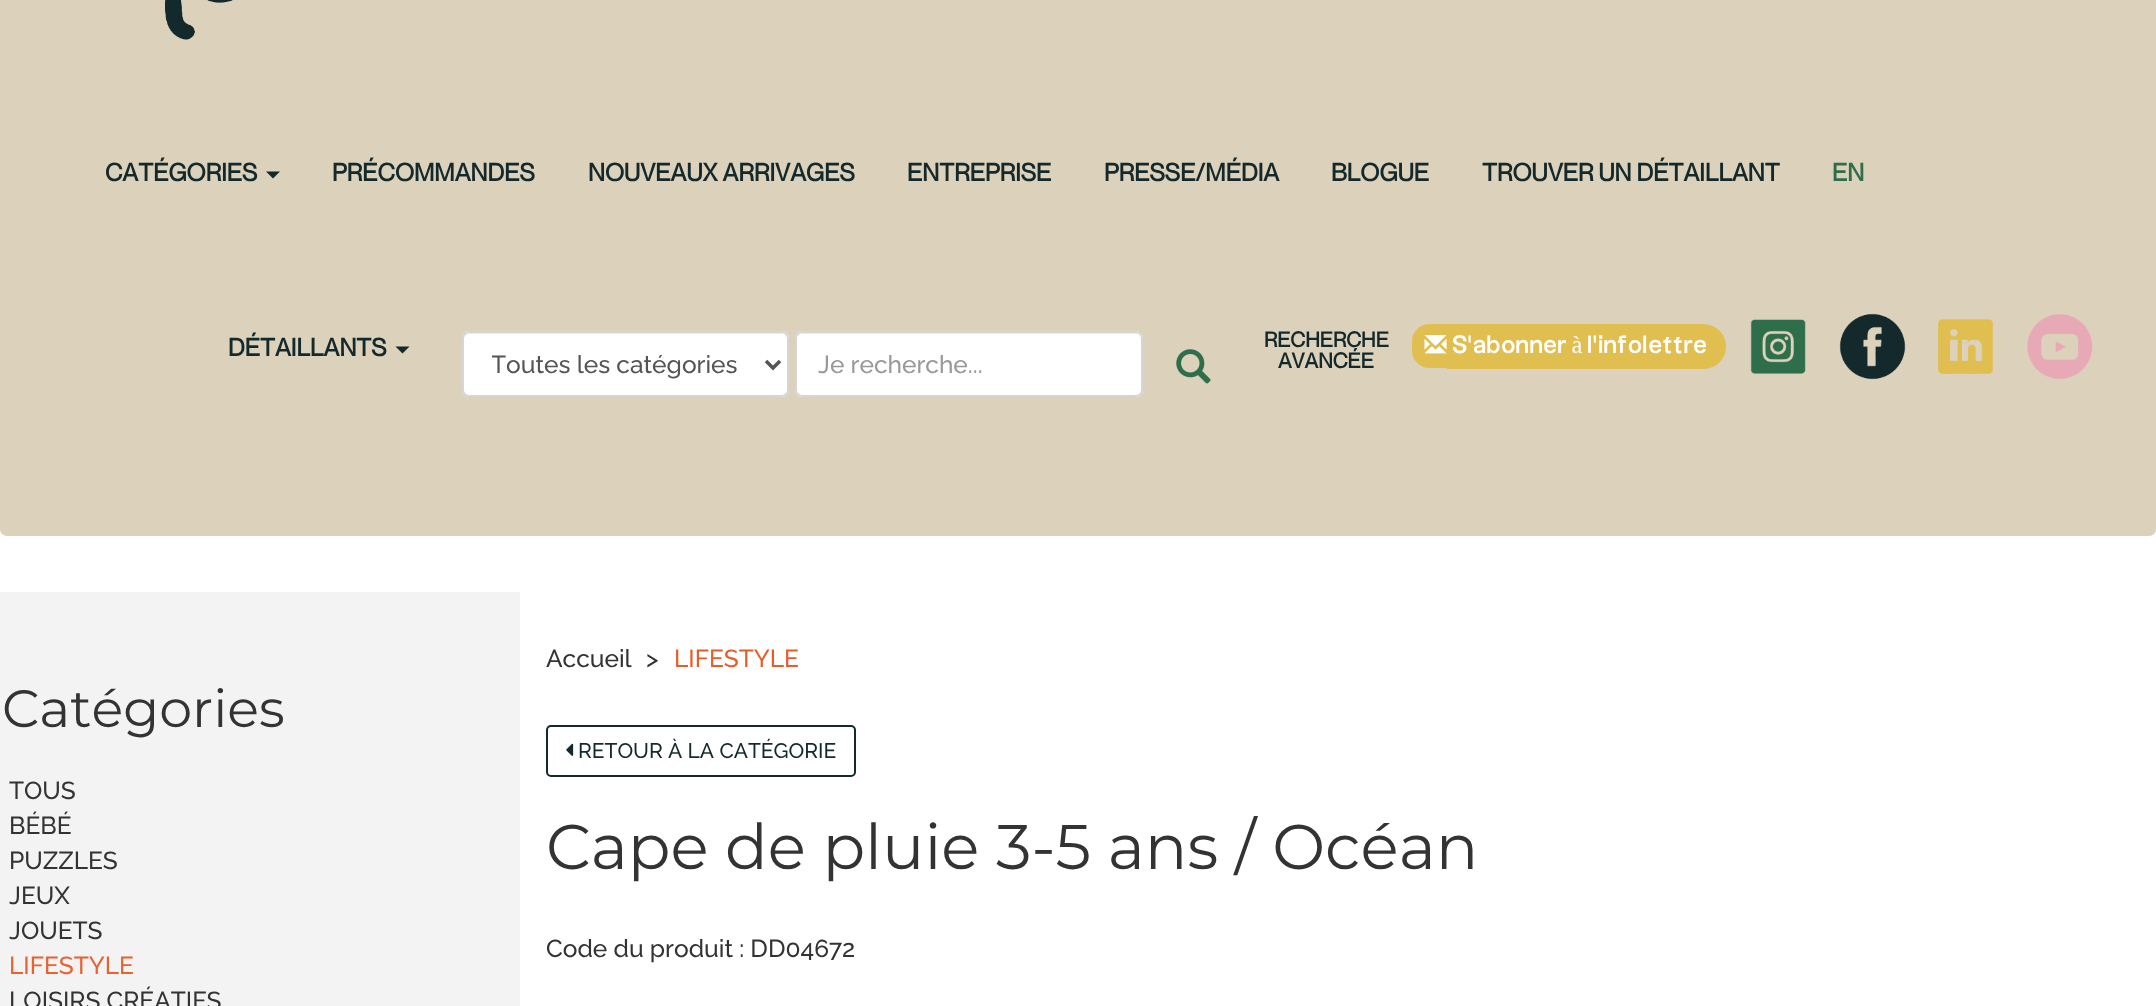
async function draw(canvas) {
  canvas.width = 2156;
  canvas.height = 1006;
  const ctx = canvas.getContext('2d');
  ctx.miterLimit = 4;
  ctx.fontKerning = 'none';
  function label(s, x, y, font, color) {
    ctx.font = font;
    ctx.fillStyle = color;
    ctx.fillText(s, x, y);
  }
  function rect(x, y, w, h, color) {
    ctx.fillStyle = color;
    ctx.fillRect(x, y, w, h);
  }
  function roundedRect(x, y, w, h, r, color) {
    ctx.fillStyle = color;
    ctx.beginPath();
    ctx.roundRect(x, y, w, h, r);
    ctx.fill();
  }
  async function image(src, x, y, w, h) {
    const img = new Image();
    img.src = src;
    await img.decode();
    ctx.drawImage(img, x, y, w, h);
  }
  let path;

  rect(0, 0, 2156, 1006, '#fff');
  roundedRect(0, -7, 2156, 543, 7, '#dcd1ba');
  await image('assets/img1.png', 165, 0, 68, 40);
  label('CATÉGORIES', 105, 181, 'bold 24.5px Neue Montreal', '#14292b');
  path = new Path2D('M266 171.5H280L273 178.5Z');
  ctx.fill(path);
  label('PRÉCOMMANDES', 332, 181, 'bold 24.5px Neue Montreal', '#14292b');
  label('NOUVEAUX ARRIVAGES', 588, 181, 'bold 24.5px Neue Montreal', '#14292b');
  label('ENTREPRISE', 907, 181, 'bold 24.5px Neue Montreal', '#14292b');
  label('PRESSE/MÉDIA', 1104, 181, 'bold 24.5px Neue Montreal', '#14292b');
  label('BLOGUE', 1331, 181, 'bold 24.5px Neue Montreal', '#14292b');
  label('TROUVER UN DÉTAILLANT', 1482, 181, 'bold 24.5px Neue Montreal', '#14292b');
  label('EN', 1832, 181, 'bold 24.5px Neue Montreal', '#2f6e4b');
  label('DÉTAILLANTS', 228, 356, 'bold 24.5px Neue Montreal', '#14292b');
  path = new Path2D('M395.5 346.5H409.5L402.5 353.5Z');
  ctx.fill(path);
  label('RECHERCHE', 1264, 347, 'bold 21px Neue Montreal', '#14292b');
  label('AVANCÉE', 1278, 368, 'bold 21px Neue Montreal', '#14292b');
  roundedRect(462, 331, 327, 66, 7, '#fff');
  ctx.fillStyle = '#ececec';
  path = new Path2D('M469 334H782C785 334 788 337 788 340V338C788 335 786 333 783 333H469C466 333 464 335 464 338V340C464 337 466 334 469 334Z');
  ctx.fill(path);
  ctx.beginPath();
  ctx.roundRect(463, 332, 325, 64, 6);
  ctx.strokeStyle = '#d5d5d5';
  ctx.lineWidth = 2;
  ctx.stroke();
  path = new Path2D('M766 361L773 368L780 361');
  ctx.strokeStyle = '#555';
  ctx.lineWidth = 3.5;
  ctx.stroke(path);
  ctx.save();
  ctx.beginPath();
  ctx.rect(492, 348, 247, 32);
  ctx.clip();
  label('Toutes les catégories', 491, 373, '500 24.5px Raleway', '#555');
  ctx.restore();
  roundedRect(795, 331, 348, 66, 7, '#fff');
  ctx.fillStyle = '#ececec';
  path = new Path2D('M802 334H1136C1139 334 1141 337 1141 340C1141 337 1140 333 1136 333H801C797 333 796 337 796 340C796 337 799 334 802 334Z');
  ctx.fill(path);
  ctx.beginPath();
  ctx.roundRect(796, 332, 346, 64, 6);
  ctx.strokeStyle = '#d5d5d5';
  ctx.lineWidth = 2;
  ctx.stroke();
  label('Je recherche...', 818, 373, '500 24.5px Raleway', '#999');
  await image('assets/img2.png', 1176, 349, 35, 35);
  ctx.fillStyle = '#e1be50';
  ctx.beginPath();
  ctx.roundRect(1412, 324, 35, 44, [17.5, 0, 0, 17.5]);
  ctx.fill();
  ctx.beginPath();
  ctx.roundRect(1447, 324, 279, 45, [0, 22.5, 22.5, 0]);
  ctx.fill();
  await image('assets/img3.png', 1424, 335, 23, 19);
  label('S\'abonner à l\'infolettre', 1452, 353, '500 24.5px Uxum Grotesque', '#fff');
  await image('assets/img4.png', 1750, 319, 56, 55);
  await image('assets/img5.png', 1839, 313, 67, 67);
  await image('assets/img6.png', 1938, 319, 56, 55);
  await image('assets/img7.png', 2027, 314, 66, 65);
  rect(0, 592, 520, 414, '#f3f3f3');
  label('Catégories', 2, 727, '52.5px Montserrat', '#333');
  label('TOUS', 9, 799, '500 24.5px Raleway', '#333');
  label('BÉBÉ', 9, 834, '500 24.5px Raleway', '#333');
  label('PUZZLES', 9, 869, '500 24.5px Raleway', '#333');
  label('JEUX', 9, 904, '500 24.5px Raleway', '#333');
  label('JOUETS', 9, 939, '500 24.5px Raleway', '#333');
  label('LIFESTYLE', 9, 974, '500 24.5px Raleway', '#e8612e');
  label('LOISIRS CRÉATIFS', 9, 1009, '500 24.5px Raleway', '#333');
  label('Accueil', 546, 667, '500 24.5px Raleway', '#333');
  label('>', 646, 667, '500 24.5px Raleway', '#333');
  label('LIFESTYLE', 674, 667, '500 24.5px Raleway', '#e85c27');
  ctx.beginPath();
  ctx.roundRect(547, 726, 308, 50, 4);
  ctx.strokeStyle = '#14292b';
  ctx.stroke();
  await image('assets/img8.png', 566, 743, 8, 13);
  label('RETOUR À LA CATÉGORIE', 578, 758, '500 21px Raleway', '#14292b');
  label('Cape de pluie 3-5 ans / Océan', 546, 869, '63px Montserrat', '#333');
  label('Code du produit : DD04672', 546, 957, '500 24.5px Raleway', '#333');
}

draw(document.querySelector('canvas'));
